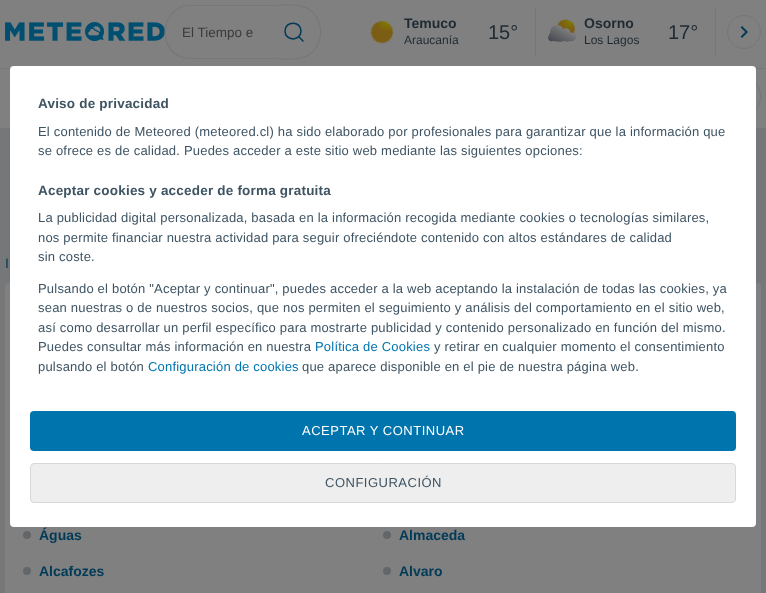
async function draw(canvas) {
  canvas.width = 766;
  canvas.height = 593;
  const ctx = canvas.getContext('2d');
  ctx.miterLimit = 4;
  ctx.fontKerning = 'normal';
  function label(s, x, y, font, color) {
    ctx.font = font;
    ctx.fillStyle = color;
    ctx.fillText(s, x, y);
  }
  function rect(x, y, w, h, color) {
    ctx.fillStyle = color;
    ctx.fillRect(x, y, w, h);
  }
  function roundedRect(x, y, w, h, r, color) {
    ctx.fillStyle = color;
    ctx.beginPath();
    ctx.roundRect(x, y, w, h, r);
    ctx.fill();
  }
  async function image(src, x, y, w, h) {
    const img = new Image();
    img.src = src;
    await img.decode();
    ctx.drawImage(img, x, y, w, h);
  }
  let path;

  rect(0, 0, 766, 593, '#767778');
  rect(0, 0, 766, 128, '#808080');
  rect(0, 68, 766, 1, '#767778');
  await image('assets/img1.png', 5, 22, 160, 20);
  path = new Path2D('M190 5H268V59H203C196 59 187 60 180 57C155 47 162 5 190 5ZM190 6H268V58H190C177 58 166 47 166 34V30C166 17 177 6 190 6Z');
  ctx.fill(path, 'evenodd');
  label('El Tiempo e', 182, 37, '13.5px Liberation Sans', '#3b3b3b');
  ctx.fillStyle = '#767778';
  path = new Path2D('M268 5C278 5 297 3 306 7C326 16 326 48 306 57C297 61 278 59 268 59ZM268 6C278 6 297 4 305 8C325 16 325 48 305 56C297 60 278 58 268 58Z');
  ctx.fill(path, 'evenodd');
  path = new Path2D('M303 41L298.5 36.5M301 31C301 41.5 285 41.5 285 31C285 20.5 301 20.5 301 31Z');
  ctx.strokeStyle = '#003a57';
  ctx.lineWidth = 1.5;
  ctx.lineCap = 'round';
  ctx.lineJoin = 'round';
  ctx.stroke(path);
  await image('assets/img2.png', 370, 20, 24, 24);
  label('Temuco', 404, 28, 'bold 14px Liberation Sans', '#1f2a32');
  label('Araucanía', 404, 44, '12px Liberation Sans', '#1f2a32');
  label('15°', 488, 39, '20px Liberation Sans', '#1f2a32');
  rect(535, 8, 1, 48, '#767778');
  await image('assets/img3.png', 548, 19, 28, 23);
  label('Osorno', 584, 28, 'bold 14px Liberation Sans', '#1f2a32');
  label('Los Lagos', 584, 44, '12px Liberation Sans', '#1f2a32');
  label('17°', 668, 39, '20px Liberation Sans', '#1f2a32');
  rect(715, 8, 1, 48, '#767778');
  ctx.beginPath();
  ctx.arc(744, 32, 16.5, 0, 2 * Math.PI);
  ctx.strokeStyle = '#767778';
  ctx.lineWidth = 1;
  ctx.stroke();
  await image('assets/img4.png', 740, 26, 8, 12);
  ctx.beginPath();
  ctx.roundRect(683.5, 74.5, 77, 44, 22);
  ctx.lineJoin = 'miter';
  ctx.stroke();
  roundedRect(5, 283, 756, 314, 4, '#808080');
  roundedRect(10, 66, 746, 461, 4, '#fff');
  ctx.letterSpacing = '0.2px';
  label('Aviso de privacidad', 38, 108, 'bold 13.5px Liberation Sans', '#3e5463');
  label('El contenido de Meteored (meteored.cl) ha sido elaborado por profesionales para garantizar que la información que', 38, 136, '13px Liberation Sans', '#3e5463');
  label('se ofrece es de calidad. Puedes acceder a este sitio web mediante las siguientes opciones:', 38, 155, '13px Liberation Sans', '#3e5463');
  label('Aceptar cookies y acceder de forma gratuita', 38, 195, 'bold 13.5px Liberation Sans', '#3e5463');
  label('La publicidad digital personalizada, basada en la información recogida mediante cookies o tecnologías similares,', 38, 222, '13px Liberation Sans', '#3e5463');
  label('nos permite financiar nuestra actividad para seguir ofreciéndote contenido con altos estándares de calidad', 38, 242, '13px Liberation Sans', '#3e5463');
  label('sin coste.', 38, 261, '13px Liberation Sans', '#3e5463');
  label('Pulsando el botón "Aceptar y continuar", puedes acceder a la web aceptando la instalación de todas las cookies, ya', 38, 293, '13px Liberation Sans', '#3e5463');
  label('sean nuestras o de nuestros socios, que nos permiten el seguimiento y análisis del comportamiento en el sitio web,', 38, 312, '13px Liberation Sans', '#3e5463');
  label('así como desarrollar un perfil específico para mostrarte publicidad y contenido personalizado en función del mismo.', 38, 332, '13px Liberation Sans', '#3e5463');
  label('Puedes consultar más información en nuestra', 38, 351, '13px Liberation Sans', '#3e5463');
  label('Política de Cookies', 315, 351, '13px Liberation Sans', '#0074ad');
  label('y retirar en cualquier momento el consentimiento', 434, 351, '13px Liberation Sans', '#3e5463');
  label('pulsando el botón', 38, 371, '13px Liberation Sans', '#3e5463');
  label('Configuración de cookies', 148, 371, '13px Liberation Sans', '#0074ad');
  label('que aparece disponible en el pie de nuestra página web.', 302, 371, '13px Liberation Sans', '#3e5463');
  roundedRect(30, 411, 706, 40, 4, '#0074ad');
  ctx.letterSpacing = '0.5px';
  label('ACEPTAR Y CONTINUAR', 302, 435, '13px Liberation Sans', '#fff');
  ctx.fillStyle = '#eee';
  ctx.beginPath();
  ctx.roundRect(30.5, 463.5, 705, 39, 3.5);
  ctx.fill();
  ctx.strokeStyle = '#d8d8d8';
  ctx.stroke();
  label('CONFIGURACIÓN', 325, 487, '13px Liberation Sans', '#3e5463');
  ctx.letterSpacing = '0px';
  label('I', 5, 268, '14px Liberation Sans', '#003a57');
  ctx.fillStyle = '#636668';
  ctx.beginPath();
  ctx.arc(27, 535, 4, 0, 2 * Math.PI);
  ctx.fill();
  label('Águas', 39, 540, 'bold 14px Liberation Sans', '#003a57');
  ctx.fillStyle = '#636668';
  ctx.beginPath();
  ctx.arc(387, 535, 4, 0, 2 * Math.PI);
  ctx.fill();
  label('Almaceda', 399, 540, 'bold 14px Liberation Sans', '#003a57');
  ctx.fillStyle = '#636668';
  ctx.beginPath();
  ctx.arc(27, 571, 4, 0, 2 * Math.PI);
  ctx.fill();
  label('Alcafozes', 39, 576, 'bold 14px Liberation Sans', '#003a57');
  ctx.fillStyle = '#636668';
  ctx.beginPath();
  ctx.arc(387, 571, 4, 0, 2 * Math.PI);
  ctx.fill();
  label('Alvaro', 399, 576, 'bold 14px Liberation Sans', '#003a57');
}

draw(document.querySelector('canvas'));
